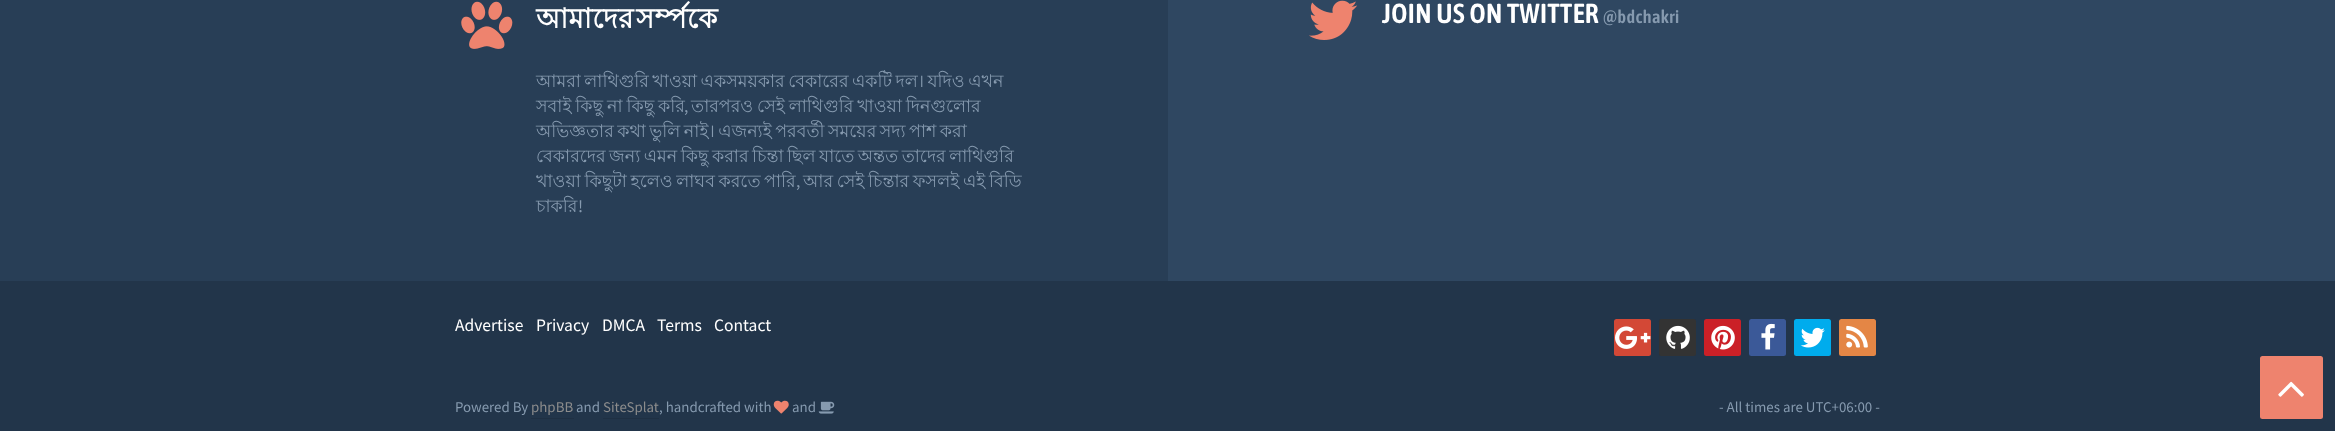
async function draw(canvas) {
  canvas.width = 2335;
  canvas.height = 431;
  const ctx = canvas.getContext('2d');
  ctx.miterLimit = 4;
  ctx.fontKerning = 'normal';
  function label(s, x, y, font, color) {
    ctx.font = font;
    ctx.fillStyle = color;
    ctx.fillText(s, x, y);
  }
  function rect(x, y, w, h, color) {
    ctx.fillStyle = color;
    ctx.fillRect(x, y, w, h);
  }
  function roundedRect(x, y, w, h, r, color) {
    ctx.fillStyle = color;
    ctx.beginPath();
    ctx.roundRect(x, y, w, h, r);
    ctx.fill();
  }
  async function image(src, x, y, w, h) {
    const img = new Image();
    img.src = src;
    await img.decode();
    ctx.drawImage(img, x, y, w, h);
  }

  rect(0, 0, 2335, 431, '#22354a');
  rect(0, 0, 1168, 281, '#283e56');
  await image('assets/img1.png', 461, 1, 52, 48);
  ctx.letterSpacing = '0.5px';
  ctx.wordSpacing = '-6px';
  label('আমাদের সর্ম্পকে', 536, 28, 'bold 27.5px Lohit Bengali', '#fff');
  ctx.letterSpacing = '0px';
  ctx.wordSpacing = '-1.4px';
  label('আমরা লাথিগুরি খাওয়া একসময়কার বেকারের একটি দল। যদিও এখন', 536, 87, '17.5px Lohit Bengali', '#869aaf');
  ctx.wordSpacing = '-1px';
  label('সবাই কিছু না কিছু করি', 536, 112, '17.5px Lohit Bengali', '#869aaf');
  ctx.wordSpacing = '0px';
  label(',', 684, 112, '17.5px Source Sans Pro', '#869aaf');
  ctx.wordSpacing = '-1px';
  label('তারপরও সেই লাথিগুরি খাওয়া দিনগুলোর', 691, 112, '17.5px Lohit Bengali', '#869aaf');
  ctx.wordSpacing = '-1.4px';
  label('অভিজ্ঞতার কথা ভুলি নাই। এজন্যই পরবর্তী সময়ের সদ্য পাশ করা', 536, 137, '17.5px Lohit Bengali', '#869aaf');
  label('বেকারদের জন্য এমন কিছু করার চিন্তা ছিল যাতে অন্তত তাদের লাথিগুরি', 536, 162, '17.5px Lohit Bengali', '#869aaf');
  ctx.wordSpacing = '-1.25px';
  label('খাওয়া কিছুটা হলেও লাঘব করতে পারি', 536, 187, '17.5px Lohit Bengali', '#869aaf');
  ctx.wordSpacing = '0px';
  label(',', 796, 187, '17.5px Source Sans Pro', '#869aaf');
  ctx.wordSpacing = '-1.25px';
  label('আর সেই চিন্তার ফসলই এই বিডি', 803, 187, '17.5px Lohit Bengali', '#869aaf');
  ctx.wordSpacing = '0px';
  label('চাকরি', 536, 212, '17.5px Lohit Bengali', '#869aaf');
  label('!', 578, 212, '17.5px Source Sans Pro', '#869aaf');
  rect(1168, 0, 1167, 281, '#2f4761');
  await image('assets/img2.png', 1309, 0, 49, 40);
  ctx.letterSpacing = '0.5px';
  label('JOIN US ON TWITTER', 1382, 23, '600 27.5px Asap Condensed', '#fff');
  label('@bdchakri', 1603, 23, '600 18px Asap Condensed', '#869aaf');
  ctx.letterSpacing = '0px';
  label('Advertise', 455, 331, '17.5px Source Sans Pro', '#fff');
  label('Privacy', 536, 331, '17.5px Source Sans Pro', '#fff');
  label('DMCA', 602, 331, '17.5px Source Sans Pro', '#fff');
  label('Terms', 657, 331, '17.5px Source Sans Pro', '#fff');
  label('Contact', 714, 331, '17.5px Source Sans Pro', '#fff');
  roundedRect(1614, 319, 37, 37, 2.5, '#d34836');
  await image('assets/img3.png', 1615, 326, 36, 23);
  roundedRect(1659, 319, 37, 37, 2.5, '#333');
  await image('assets/img4.png', 1666, 325, 24, 24);
  roundedRect(1704, 319, 37, 37, 2.5, '#cb2027');
  await image('assets/img5.png', 1711, 325, 24, 25);
  roundedRect(1749, 319, 37, 37, 2.5, '#3b5998');
  await image('assets/img6.png', 1761, 323, 14, 27);
  roundedRect(1794, 319, 37, 37, 2.5, '#00aced');
  await image('assets/img7.png', 1800, 327, 25, 21);
  roundedRect(1839, 319, 37, 37, 2.5, '#e48645');
  await image('assets/img8.png', 1846, 325, 22, 23);
  label('Powered By', 455, 412, '14.9px Source Sans Pro', '#869aaf');
  label('phpBB', 531, 412, '14.9px Source Sans Pro', '#8c8c8c');
  rect(531, 418, 43, 1, '#1f3043');
  label('and', 576, 412, '14.9px Source Sans Pro', '#869aaf');
  label('SiteSplat', 603, 412, '14.9px Source Sans Pro', '#8c8c8c');
  rect(603, 418, 56, 1, '#1f3043');
  label(', handcrafted with', 659, 412, '14.9px Source Sans Pro', '#869aaf');
  await image('assets/img9.png', 773, 400, 16, 14);
  label('and', 792, 412, '14.9px Source Sans Pro', '#869aaf');
  await image('assets/img10.png', 818, 401, 17, 13);
  label('- All times are UTC+06:00 -', 1719, 412, '14.9px Source Sans Pro', '#869aaf');
  roundedRect(2260, 356, 63, 63, 2.5, '#ee836e');
  await image('assets/img11.png', 2278, 381, 26, 16);
}

draw(document.querySelector('canvas'));
